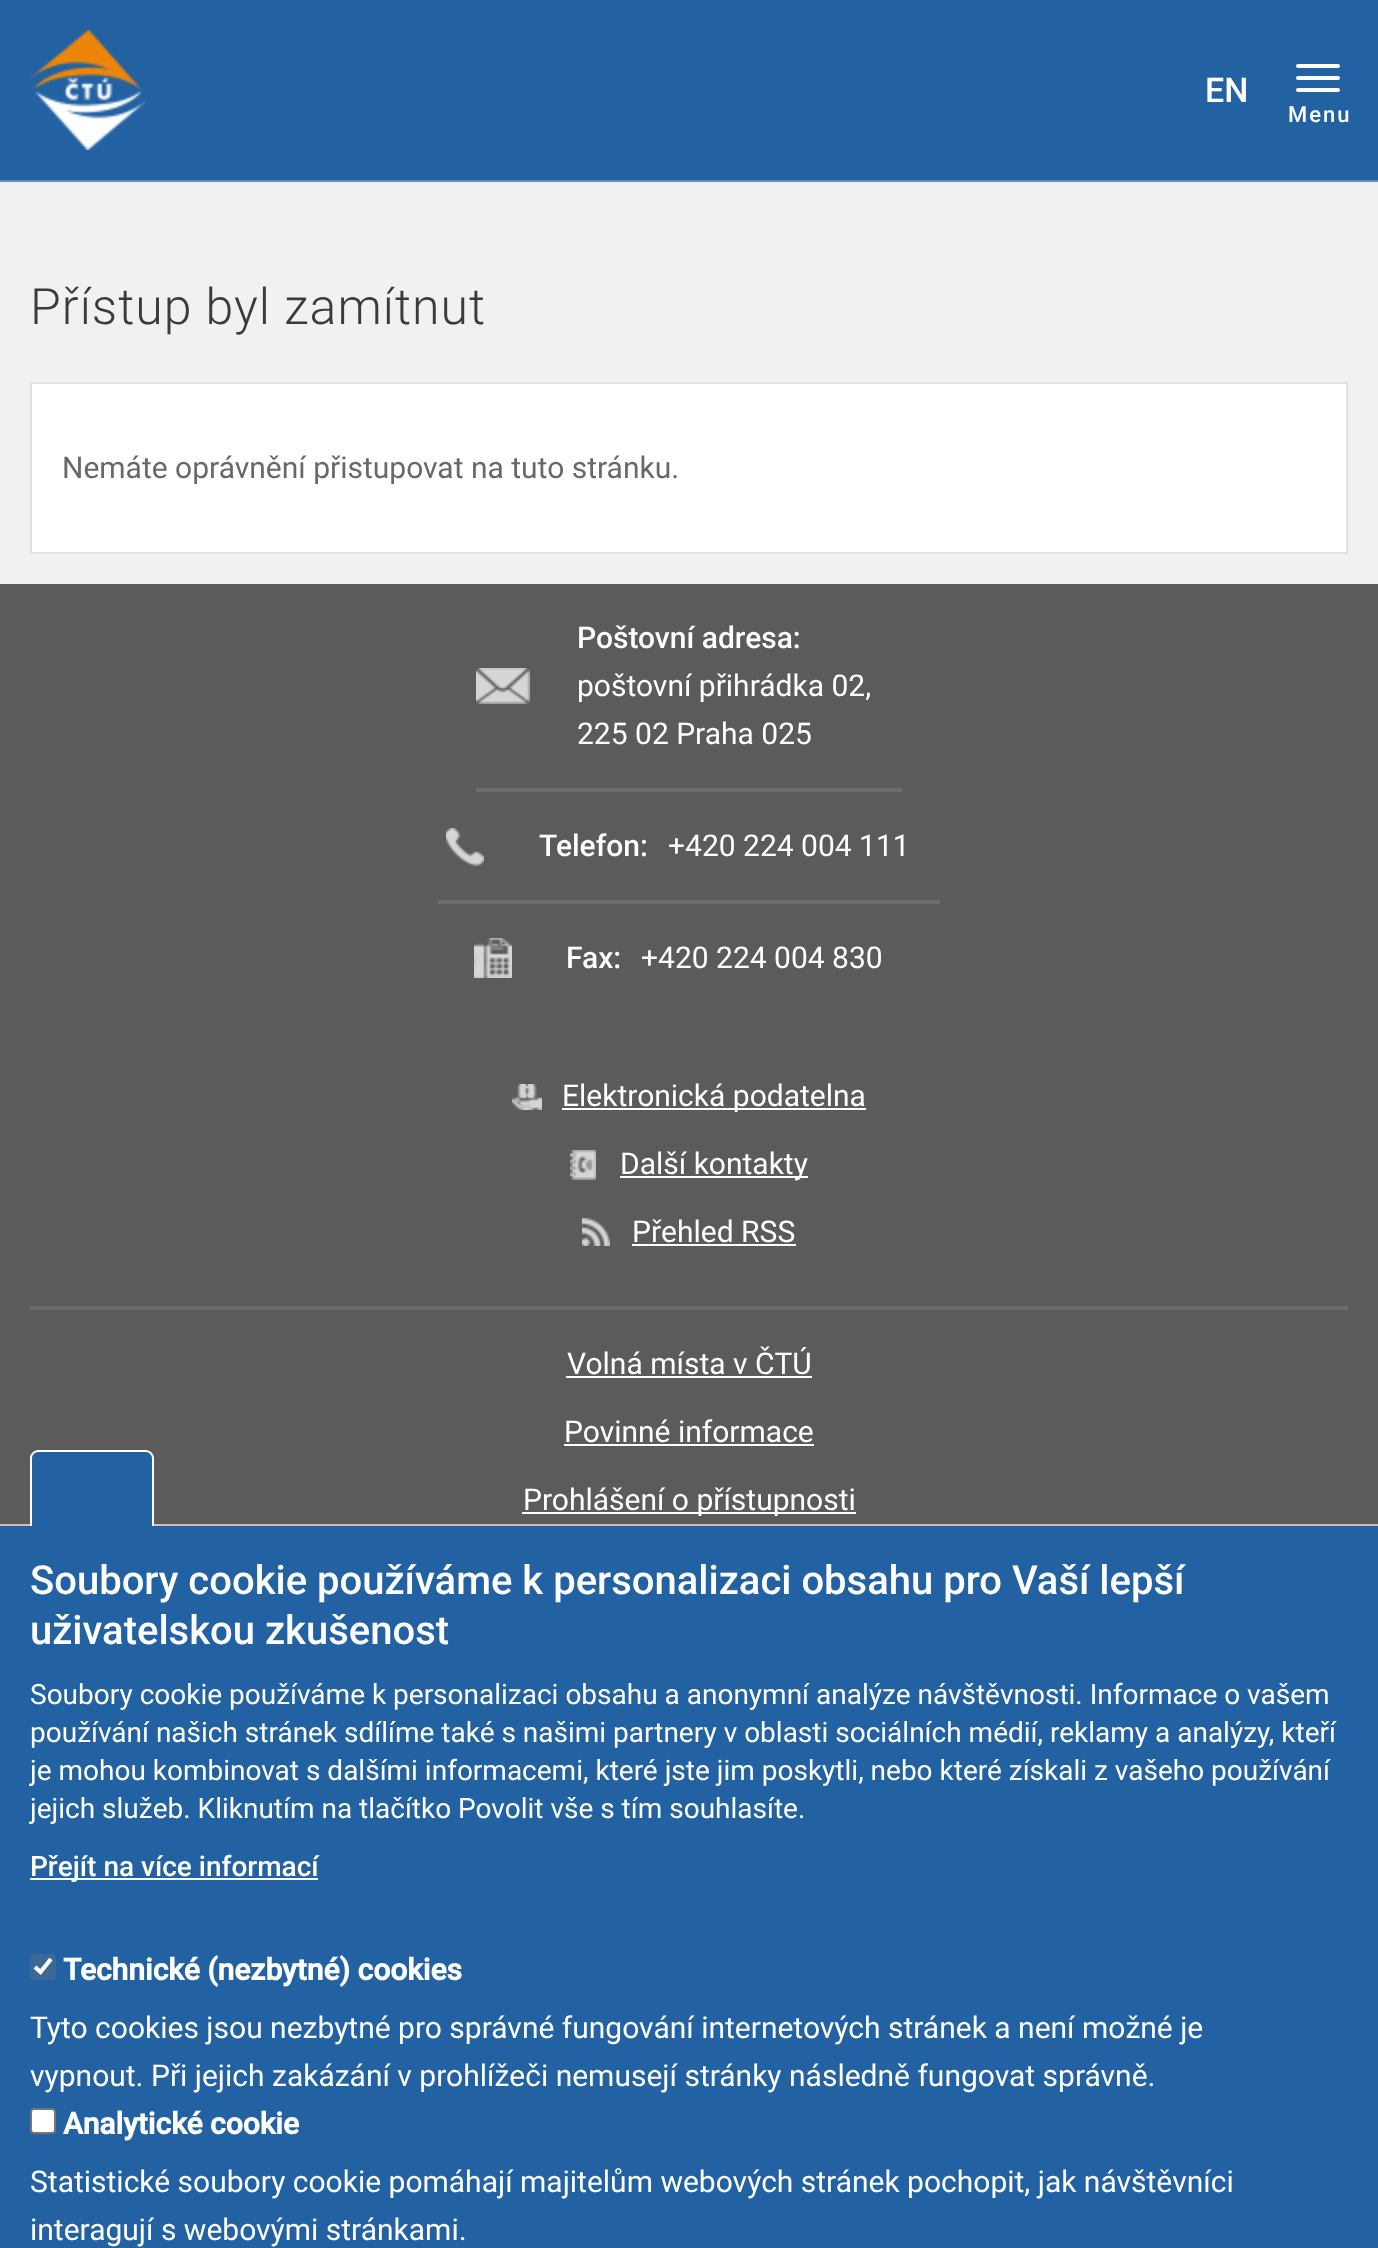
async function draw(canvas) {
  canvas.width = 1378;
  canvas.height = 2248;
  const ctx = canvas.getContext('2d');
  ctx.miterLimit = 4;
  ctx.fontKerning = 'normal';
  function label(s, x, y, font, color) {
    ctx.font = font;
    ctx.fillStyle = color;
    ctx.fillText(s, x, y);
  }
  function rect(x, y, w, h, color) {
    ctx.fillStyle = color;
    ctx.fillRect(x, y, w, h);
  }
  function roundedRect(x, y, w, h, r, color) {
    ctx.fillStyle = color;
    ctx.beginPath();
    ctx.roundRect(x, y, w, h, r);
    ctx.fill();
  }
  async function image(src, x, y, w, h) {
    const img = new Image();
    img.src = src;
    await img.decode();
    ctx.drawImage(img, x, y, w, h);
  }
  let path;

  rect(0, 0, 1378, 2248, '#f1f1f1');
  rect(0, 0, 1378, 180, '#2362a2');
  await image('assets/img1.png', 30, 30, 116, 120);
  label('EN', 1205, 102, '500 34px Roboto', '#fff');
  roundedRect(1296, 64, 44, 4, 2, '#fff');
  roundedRect(1296, 76, 44, 4, 2, '#fff');
  roundedRect(1296, 88, 44, 4, 2, '#fff');
  ctx.letterSpacing = '2px';
  label('Menu', 1288, 122, '500 22px Roboto', '#fff');
  rect(0, 180, 1378, 2, '#6591be');
  ctx.letterSpacing = '1px';
  label('Přístup byl zamítnut', 30, 324, '300 50px Roboto', '#3b3b3b');
  ctx.fillStyle = '#fff';
  ctx.beginPath();
  ctx.rect(31, 383, 1316, 170);
  ctx.fill();
  ctx.strokeStyle = '#e2e2e2';
  ctx.lineWidth = 2;
  ctx.stroke();
  ctx.letterSpacing = '0px';
  label('Nemáte oprávnění přistupovat na tuto stránku.', 62, 478, '30px Roboto', '#686868');
  rect(0, 584, 1378, 940, '#5b5b5b');
  await image('assets/img2.png', 476, 668, 54, 36);
  rect(476, 788, 426, 4, '#6c6c6c');
  label('Poštovní adresa:', 577, 648, '500 30px Roboto', '#fff');
  label('poštovní přihrádka 02,', 577, 696, '30px Roboto', '#fff');
  label('225 02 Praha 025', 577, 744, '30px Roboto', '#fff');
  await image('assets/img3.png', 446, 828, 38, 38);
  rect(438, 900, 502, 4, '#6c6c6c');
  label('Telefon:', 539, 856, '500 30px Roboto', '#fff');
  label('+420 224 004 111', 668, 856, '30px Roboto', '#fff');
  await image('assets/img4.png', 474, 938, 38, 40);
  label('Fax:', 566, 968, '500 30px Roboto', '#fff');
  label('+420 224 004 830', 641, 968, '30px Roboto', '#fff');
  rect(30, 1306, 1318, 4, '#6c6c6c');
  await image('assets/img5.png', 512, 1084, 30, 26);
  rect(562, 1108, 304, 2, '#fff');
  label('Elektronická podatelna', 562, 1106, '30px Roboto', '#fff');
  await image('assets/img6.png', 570, 1150, 26, 30);
  rect(620, 1176, 188, 2, '#fff');
  label('Další kontakty', 620, 1174, '30px Roboto', '#fff');
  await image('assets/img7.png', 582, 1218, 28, 28);
  label('Přehled RSS', 632, 1242, '30px Roboto', '#fff');
  rect(632, 1244, 164, 2, '#fff');
  label('Volná místa v ČTÚ', 567, 1374, '30px Roboto', '#fff');
  rect(566, 1376, 246, 2, '#fff');
  label('Povinné informace', 564, 1442, '30px Roboto', '#fff');
  rect(564, 1444, 250, 2, '#fff');
  rect(522, 1512, 334, 2, '#fff');
  label('Prohlášení o přístupnosti', 523, 1510, '30px Roboto', '#fff');
  rect(0, 1526, 1378, 722, '#2362a2');
  rect(0, 1524, 1378, 2, '#c2c2c2');
  ctx.fillStyle = '#2362a2';
  ctx.beginPath();
  ctx.roundRect(30, 1450, 124, 76, [8, 8, 0, 0]);
  ctx.fill();
  ctx.fillStyle = '#fff';
  path = new Path2D('M38 1450H146C150 1450 154 1454 154 1458V1526H30V1458C30 1454 34 1450 38 1450ZM38 1452H146C149 1452 152 1455 152 1458V1526H32V1458C32 1455 35 1452 38 1452Z');
  ctx.fill(path, 'evenodd');
  label('Soubory cookie používáme k personalizaci obsahu pro Vaší lepší', 30, 1594, '500 40px Roboto', '#fff');
  label('uživatelskou zkušenost', 30, 1644, '500 40px Roboto', '#fff');
  label('Soubory cookie používáme k personalizaci obsahu a anonymní analýze návštěvnosti. Informace o vašem', 30, 1704, '28px Roboto', '#fff');
  label('používání našich stránek sdílíme také s našimi partnery v oblasti sociálních médií, reklamy a analýzy, kteří', 30, 1742, '28px Roboto', '#fff');
  label('je mohou kombinovat s dalšími informacemi, které jste jim poskytli, nebo které získali z vašeho používání', 30, 1780, '28px Roboto', '#fff');
  label('jejich služeb. Kliknutím na tlačítko Povolit vše s tím souhlasíte.', 30, 1818, '28px Roboto', '#fff');
  rect(30, 1878, 288, 2, '#fff');
  label('Přejít na více informací', 30, 1876, '500 28px Roboto', '#fff');
  roundedRect(30, 1954, 26, 26, 4, '#3c6895');
  path = new Path2D('M35 1967L40.5 1972L51 1959');
  ctx.strokeStyle = '#fff';
  ctx.lineWidth = 4.2;
  ctx.stroke(path);
  label('Technické (nezbytné) cookies', 63, 1980, 'bold 30px Roboto', '#fff');
  label('Tyto cookies jsou nezbytné pro správné fungování internetových stránek a není možné je', 30, 2038, '30px Roboto', '#fff');
  label('vypnout. Při jejich zakázání v prohlížeči nemusejí stránky následně fungovat správně.', 30, 2086, '30px Roboto', '#fff');
  ctx.beginPath();
  ctx.roundRect(31, 2109, 24, 24, 3);
  ctx.fill();
  ctx.strokeStyle = '#767676';
  ctx.lineWidth = 2;
  ctx.stroke();
  label('Analytické cookie', 63, 2134, 'bold 30px Roboto', '#fff');
  label('Statistické soubory cookie pomáhají majitelům webových stránek pochopit, jak návštěvníci', 30, 2192, '30px Roboto', '#fff');
  label('interagují s webovými stránkami.', 30, 2240, '30px Roboto', '#fff');
}

draw(document.querySelector('canvas'));
